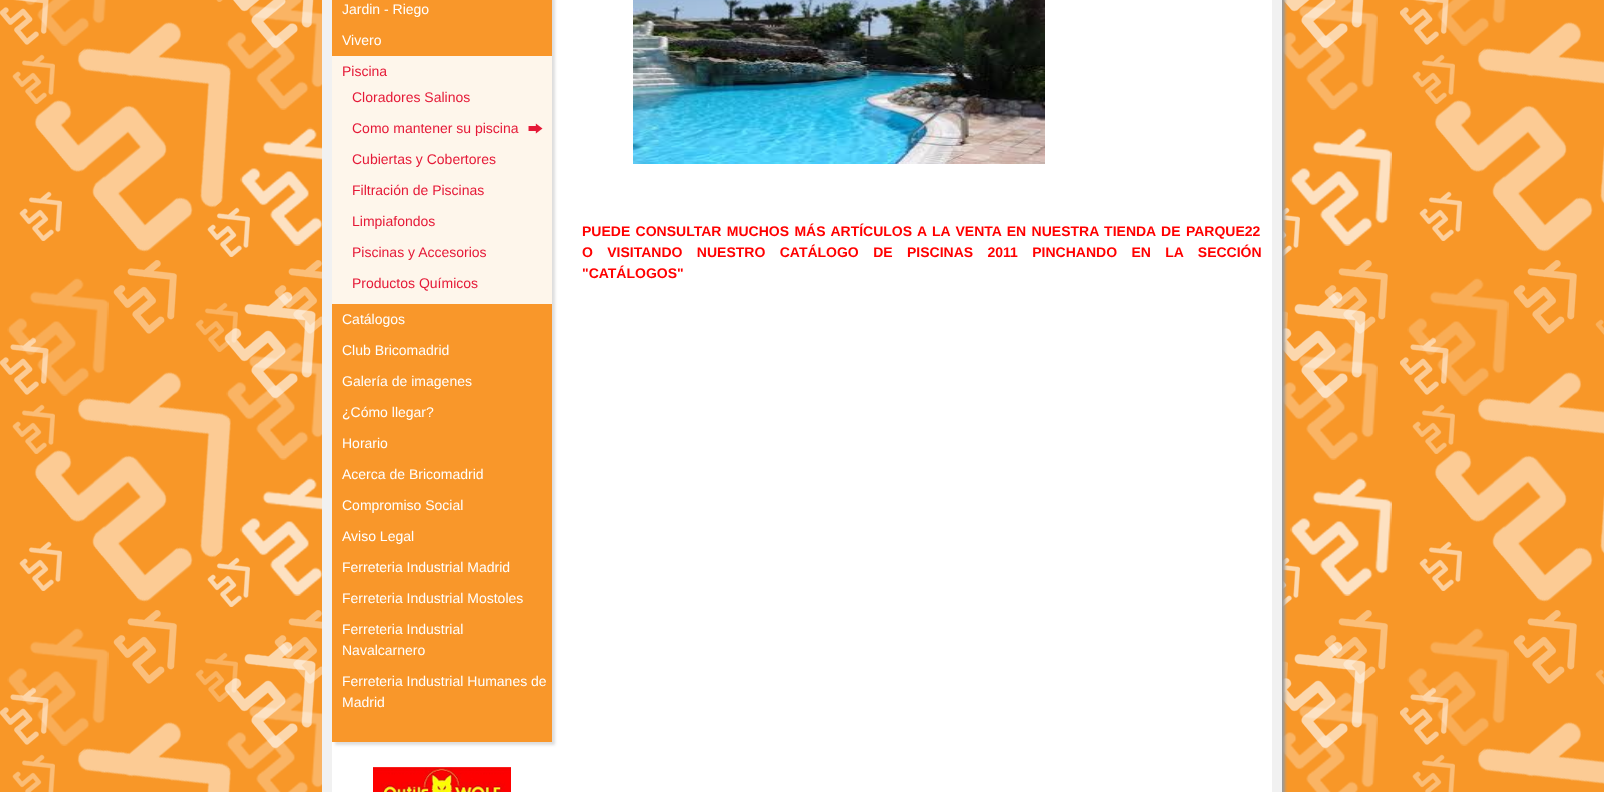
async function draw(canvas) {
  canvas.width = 1604;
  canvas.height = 792;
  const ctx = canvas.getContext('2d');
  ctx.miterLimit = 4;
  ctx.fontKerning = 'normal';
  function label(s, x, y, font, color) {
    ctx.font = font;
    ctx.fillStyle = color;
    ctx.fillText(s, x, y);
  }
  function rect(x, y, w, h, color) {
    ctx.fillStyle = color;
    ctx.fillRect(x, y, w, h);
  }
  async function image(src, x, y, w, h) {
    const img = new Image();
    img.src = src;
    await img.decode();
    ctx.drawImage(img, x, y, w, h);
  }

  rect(0, 0, 1604, 792, '#fff');
  await image('assets/img1.png', 0, 0, 1604, 792);
  ctx.fillStyle = '#999';
  ctx.filter = 'blur(1.5px)';
  ctx.beginPath();
  ctx.rect(325, -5, 960, 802);
  ctx.fill();
  ctx.filter = 'none';
  rect(332, 0, 940, 792, '#fff');
  rect(1272, 0, 10, 792, '#f1f1f1');
  rect(322, 0, 10, 792, '#f1f1f1');
  ctx.fillStyle = '#ddd';
  ctx.filter = 'blur(1.5px)';
  ctx.beginPath();
  ctx.rect(335, -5, 220, 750);
  ctx.fill();
  ctx.filter = 'none';
  rect(332, 0, 220, 742, '#f9972a');
  label('Jardin - Riego', 342, 14, '14px Liberation Sans', '#fff');
  label('Vivero', 342, 45, '14px Liberation Sans', '#fff');
  rect(332, 56, 220, 248, '#fef6eb');
  label('Piscina', 342, 76, '14px Liberation Sans', '#e51937');
  label('Cloradores Salinos', 352, 102, '14px Liberation Sans', '#e51937');
  await image('assets/img2.png', 528, 123, 15, 11);
  label('Como mantener su piscina', 352, 133, '14px Liberation Sans', '#e51937');
  label('Cubiertas y Cobertores', 352, 164, '14px Liberation Sans', '#e51937');
  label('Filtración de Piscinas', 352, 195, '14px Liberation Sans', '#e51937');
  label('Limpiafondos', 352, 226, '14px Liberation Sans', '#e51937');
  label('Piscinas y Accesorios', 352, 257, '14px Liberation Sans', '#e51937');
  label('Productos Químicos', 352, 288, '14px Liberation Sans', '#e51937');
  label('Catálogos', 342, 324, '14px Liberation Sans', '#fff');
  label('Club Bricomadrid', 342, 355, '14px Liberation Sans', '#fff');
  label('Galería de imagenes', 342, 386, '14px Liberation Sans', '#fff');
  label('¿Cómo llegar?', 342, 417, '14px Liberation Sans', '#fff');
  label('Horario', 342, 448, '14px Liberation Sans', '#fff');
  label('Acerca de Bricomadrid', 342, 479, '14px Liberation Sans', '#fff');
  label('Compromiso Social', 342, 510, '14px Liberation Sans', '#fff');
  label('Aviso Legal', 342, 541, '14px Liberation Sans', '#fff');
  label('Ferreteria Industrial Madrid', 342, 572, '14px Liberation Sans', '#fff');
  label('Ferreteria Industrial Mostoles', 342, 603, '14px Liberation Sans', '#fff');
  label('Ferreteria Industrial', 342, 634, '14px Liberation Sans', '#fff');
  label('Navalcarnero', 342, 655, '14px Liberation Sans', '#fff');
  label('Ferreteria Industrial Humanes de', 342, 686, '14px Liberation Sans', '#fff');
  label('Madrid', 342, 707, '14px Liberation Sans', '#fff');
  await image('assets/img3.png', 373, 767, 138, 25);
  await image('assets/img4.png', 633, 0, 412, 164);
  ctx.wordSpacing = '1.5px';
  label('PUEDE CONSULTAR MUCHOS MÁS ARTÍCULOS A LA VENTA EN NUESTRA TIENDA DE PARQUE22', 582, 236, 'bold 14px Liberation Sans', '#f00');
  ctx.wordSpacing = '10.5px';
  label('O VISITANDO NUESTRO CATÁLOGO DE PISCINAS 2011 PINCHANDO EN LA SECCIÓN', 582, 257, 'bold 14px Liberation Sans', '#f00');
  ctx.wordSpacing = '0px';
  label('"CATÁLOGOS"', 582, 278, 'bold 14px Liberation Sans', '#f00');
}

draw(document.querySelector('canvas'));
